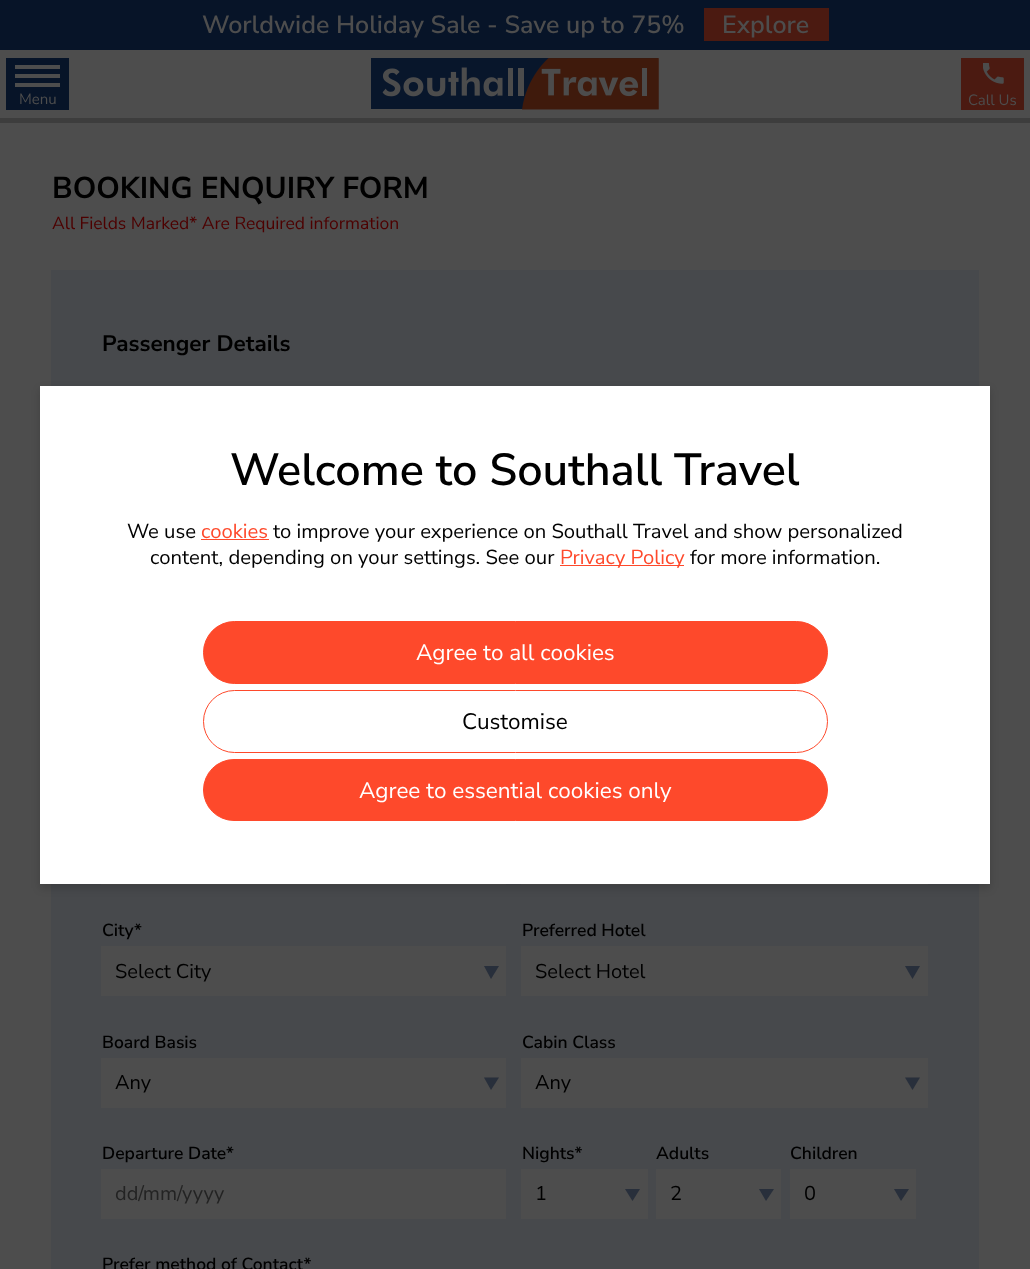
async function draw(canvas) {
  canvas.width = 1030;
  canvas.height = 1269;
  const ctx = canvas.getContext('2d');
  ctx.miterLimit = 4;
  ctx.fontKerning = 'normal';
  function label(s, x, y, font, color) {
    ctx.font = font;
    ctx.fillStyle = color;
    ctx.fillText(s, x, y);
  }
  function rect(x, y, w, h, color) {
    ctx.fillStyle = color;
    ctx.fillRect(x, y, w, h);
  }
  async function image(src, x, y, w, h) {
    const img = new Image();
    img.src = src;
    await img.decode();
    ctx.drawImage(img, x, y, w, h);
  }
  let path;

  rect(0, 0, 1030, 1269, '#4d4d4d');
  rect(6, 58, 63, 52, '#071428');
  rect(15, 65, 45, 4, '#4d4d4d');
  rect(15, 74, 45, 4, '#4d4d4d');
  rect(15, 83, 45, 4, '#4d4d4d');
  label('Menu', 19, 104, '15px Nunito Sans', '#4d4d4d');
  rect(0, 0, 1030, 50, '#071428');
  label('Worldwide Holiday Sale - Save up to 75%', 202, 33, '600 25px Nunito Sans', '#4d4d4d');
  rect(704, 8, 125, 33, '#4b1a11');
  label('Explore', 722, 33, '600 25px Nunito Sans', '#4d4d4d');
  await image('assets/img1.png', 371, 58, 288, 52);
  rect(961, 58, 63, 52, '#4b1a11');
  await image('assets/img2.png', 983, 63, 21, 21);
  label('Call Us', 968, 105, '15px Nunito Sans', '#4d4d4d');
  rect(0, 118, 1030, 5, '#3d3d3d');
  label('BOOKING ENQUIRY FORM', 52, 198, 'bold 30px Nunito Sans', '#000');
  label('All Fields Marked* Are Required information', 52, 229, '17.5px Nunito Sans', '#4d0000');
  rect(51, 270, 928, 999, '#47494c');
  label('Passenger Details', 102, 351, 'bold 22.5px Nunito Sans', '#000');
  rect(101, 884, 405, 1, '#4d4d4d');
  rect(521, 884, 407, 1, '#4d4d4d');
  label('City*', 102, 936, '600 17.5px Nunito Sans', '#000');
  rect(101, 946, 405, 50, '#4d4d4d');
  label('Select City', 115, 978, '20px Nunito Sans', '#000');
  ctx.fillStyle = '#282f3b';
  path = new Path2D('M484 966H499L491 979Z');
  ctx.fill(path);
  label('Preferred Hotel', 522, 936, '600 17.5px Nunito Sans', '#000');
  rect(521, 946, 407, 50, '#4d4d4d');
  label('Select Hotel', 535, 978, '20px Nunito Sans', '#000');
  ctx.fillStyle = '#282f3b';
  path = new Path2D('M905 966H920L912.5 979Z');
  ctx.fill(path);
  label('Board Basis', 102, 1048, '600 17.5px Nunito Sans', '#000');
  rect(101, 1058, 405, 50, '#4d4d4d');
  label('Any', 115, 1089, '20px Nunito Sans', '#000');
  ctx.fillStyle = '#282f3b';
  path = new Path2D('M484 1077.5H499L491 1090Z');
  ctx.fill(path);
  label('Cabin Class', 522, 1048, '600 17.5px Nunito Sans', '#000');
  rect(521, 1058, 407, 50, '#4d4d4d');
  label('Any', 535, 1089, '20px Nunito Sans', '#000');
  ctx.fillStyle = '#282f3b';
  path = new Path2D('M905 1077.5H920L912.5 1090Z');
  ctx.fill(path);
  label('Departure Date*', 102, 1159, '600 17.5px Nunito Sans', '#000');
  rect(101, 1169, 405, 50, '#4d4d4d');
  label('dd/mm/yyyy', 115, 1200, '20px Nunito Sans', '#232323');
  label('Nights*', 522, 1159, '600 17.5px Nunito Sans', '#000');
  rect(521, 1169, 127, 50, '#4d4d4d');
  label('1', 535, 1200, '20px Nunito Sans', '#000');
  ctx.fillStyle = '#282f3b';
  path = new Path2D('M625 1189H640L632.5 1201Z');
  ctx.fill(path);
  label('Adults', 656, 1159, '600 17.5px Nunito Sans', '#000');
  rect(656, 1169, 125, 50, '#4d4d4d');
  label('2', 670, 1200, '20px Nunito Sans', '#000');
  ctx.fillStyle = '#282f3b';
  path = new Path2D('M759 1189H774L766 1201Z');
  ctx.fill(path);
  label('Children', 790, 1159, '600 17.5px Nunito Sans', '#000');
  rect(790, 1169, 126, 50, '#4d4d4d');
  label('0', 804, 1200, '20px Nunito Sans', '#000');
  ctx.fillStyle = '#282f3b';
  path = new Path2D('M894 1189H909L901 1201Z');
  ctx.fill(path);
  label('Prefer method of Contact*', 102, 1270, '600 17.5px Nunito Sans', '#000');
  ctx.fillStyle = '#00000029';
  ctx.filter = 'blur(4px)';
  ctx.beginPath();
  ctx.rect(40, 390, 950, 498);
  ctx.fill();
  ctx.filter = 'none';
  rect(40, 386, 950, 498, '#fff');
  label('Welcome to Southall Travel', 230, 485, '600 45px Nunito Sans', '#000');
  label('We use', 127, 538, '20.25px Nunito Sans', '#000');
  label('cookies', 201, 538, '20.25px Nunito Sans', '#fe492b');
  rect(201, 539, 68, 1, '#fe492b');
  label('to improve your experience on Southall Travel and show personalized', 273, 538, '20.25px Nunito Sans', '#000');
  label('content, depending on your settings. See our', 150, 564, '20.25px Nunito Sans', '#000');
  rect(560, 565, 124, 1, '#fe492b');
  label('Privacy Policy', 560, 564, '20.25px Nunito Sans', '#fe492b');
  label('for more information.', 690, 564, '20.25px Nunito Sans', '#000');
  ctx.fillStyle = '#fe492b';
  ctx.beginPath();
  ctx.roundRect(203.5, 621.5, 624, 62, 31);
  ctx.fill();
  ctx.strokeStyle = '#fe492b';
  ctx.stroke();
  label('Agree to all cookies', 416, 660, '22.5px Nunito Sans', '#fff');
  ctx.beginPath();
  ctx.roundRect(203.5, 690.5, 624, 62, 31);
  ctx.stroke();
  label('Customise', 462, 729, '22.5px Nunito Sans', '#000');
  ctx.fillStyle = '#fe492b';
  ctx.beginPath();
  ctx.roundRect(203.5, 759.5, 624, 61, 30.5);
  ctx.fill();
  ctx.stroke();
  label('Agree to essential cookies only', 359, 798, '22.5px Nunito Sans', '#fff');
}

draw(document.querySelector('canvas'));
